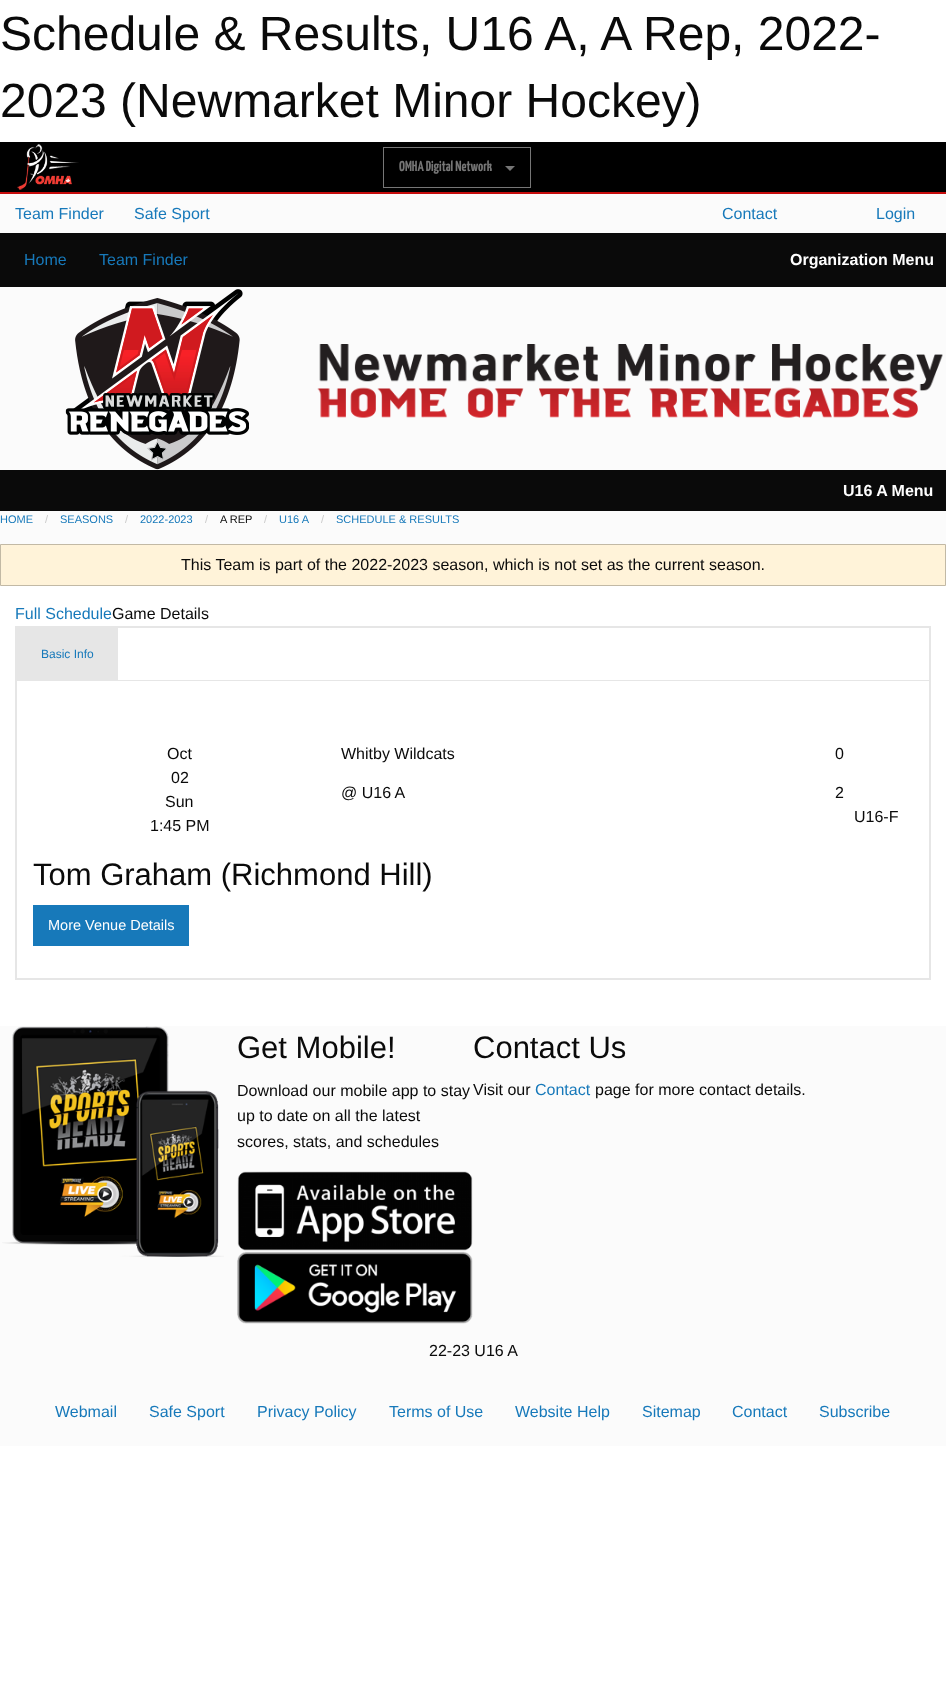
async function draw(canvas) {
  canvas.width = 946;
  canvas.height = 1681;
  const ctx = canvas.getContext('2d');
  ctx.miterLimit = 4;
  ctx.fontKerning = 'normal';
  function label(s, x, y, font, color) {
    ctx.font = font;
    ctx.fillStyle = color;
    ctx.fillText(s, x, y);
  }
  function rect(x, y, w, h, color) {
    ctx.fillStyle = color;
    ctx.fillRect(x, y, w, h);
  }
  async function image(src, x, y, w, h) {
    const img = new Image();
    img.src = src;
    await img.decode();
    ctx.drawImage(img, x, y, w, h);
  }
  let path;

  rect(0, 0, 946, 1681, '#fff');
  label('Schedule & Results, U16 A, A Rep, 2022-', 0, 50, '48px Liberation Sans', '#0a0a0a');
  label('2023 (Newmarket Minor Hockey)', 0, 117, '48px Liberation Sans', '#0a0a0a');
  rect(0, 142, 946, 50, '#000');
  rect(0, 192, 946, 2, '#c60c0c');
  await image('assets/img1.png', 17, 144, 62, 46);
  ctx.strokeStyle = '#767676';
  ctx.strokeRect(383.5, 147.5, 147, 40);
  label('OMHA Digital Network', 399, 171, '200 14.5px Yanone Kaffeesatz', '#767676');
  path = new Path2D('M505 166H515L510 171Z');
  ctx.fill(path);
  rect(0, 194, 946, 1252, '#fbfbfb');
  label('Team Finder', 15, 219, '16px Liberation Sans', '#1779ba');
  label('Safe Sport', 134, 219, '16px Liberation Sans', '#1779ba');
  label('Contact', 722, 219, '16px Liberation Sans', '#1779ba');
  label('Login', 876, 219, '16px Liberation Sans', '#1779ba');
  rect(0, 233, 946, 54, '#0a0a0a');
  label('Home', 24, 265, '16px Liberation Sans', '#1779ba');
  label('Team Finder', 99, 265, '16px Liberation Sans', '#1779ba');
  label('Organization Menu', 790, 265, 'bold 16px Liberation Sans', '#fefefe');
  await image('assets/img2.png', 65, 289, 184, 181);
  await image('assets/img3.png', 317, 344, 626, 74);
  rect(0, 470, 946, 41, '#0a0a0a');
  label('U16 A Menu', 843, 496, 'bold 16px Liberation Sans', '#fefefe');
  label('HOME', 0, 523, '11px Liberation Sans', '#1779ba');
  label('/', 45, 523, '11px Liberation Sans', '#cacaca');
  label('SEASONS', 60, 523, '11px Liberation Sans', '#1779ba');
  label('/', 125, 523, '11px Liberation Sans', '#cacaca');
  label('2022-2023', 140, 523, '11px Liberation Sans', '#1779ba');
  label('/', 205, 523, '11px Liberation Sans', '#cacaca');
  label('A REP', 220, 523, '11px Liberation Sans', '#0a0a0a');
  label('/', 264, 523, '11px Liberation Sans', '#cacaca');
  label('U16 A', 279, 523, '11px Liberation Sans', '#1779ba');
  label('/', 321, 523, '11px Liberation Sans', '#cacaca');
  label('SCHEDULE & RESULTS', 336, 523, '11px Liberation Sans', '#1779ba');
  rect(0, 586, 946, 440, '#fff');
  ctx.fillStyle = '#fff3d9';
  ctx.beginPath();
  ctx.rect(0.5, 544.5, 945, 41);
  ctx.fill();
  ctx.strokeStyle = '#c2b9a5';
  ctx.stroke();
  label('This Team is part of the 2022-2023 season, which is not set as the current season.', 181, 570, '16px Liberation Sans', '#0a0a0a');
  label('Full Schedule', 15, 619, '16px Liberation Sans', '#1779ba');
  label('Game Details', 112, 619, '16px Liberation Sans', '#0a0a0a');
  ctx.strokeStyle = '#e6e6e6';
  ctx.strokeRect(15.5, 626.5, 915, 353);
  ctx.strokeRect(16.5, 627.5, 913, 53);
  rect(17, 628, 101, 52, '#e6e6e6');
  label('Basic Info', 41, 658, '12px Liberation Sans', '#1779ba');
  rect(929, 681, 1, 298, '#e6e6e6');
  rect(16, 978, 914, 1, '#e6e6e6');
  rect(16, 681, 1, 298, '#e6e6e6');
  label('Oct', 167, 759, '16px Liberation Sans', '#0a0a0a');
  label('02', 171, 783, '16px Liberation Sans', '#0a0a0a');
  label('Sun', 165, 807, '16px Liberation Sans', '#0a0a0a');
  label('1:45 PM', 150, 831, '16px Liberation Sans', '#0a0a0a');
  label('Whitby Wildcats', 341, 759, '16px Liberation Sans', '#0a0a0a');
  label('0', 835, 759, '16px Liberation Sans', '#0a0a0a');
  label('@ U16 A', 341, 798, '16px Liberation Sans', '#0a0a0a');
  label('2', 835, 798, '16px Liberation Sans', '#0a0a0a');
  label('U16-F', 854, 822, '16px Liberation Sans', '#0a0a0a');
  label('Tom Graham (Richmond Hill)', 33, 885, '31px Liberation Sans', '#0a0a0a');
  rect(33, 905, 156, 41, '#1779ba');
  label('More Venue Details', 48, 930, '14.5px Liberation Sans', '#fefefe');
  await image('assets/img4.png', 2, 1026, 222, 231);
  label('Get Mobile!', 237, 1058, '31px Liberation Sans', '#0a0a0a');
  label('Download our mobile app to stay', 237, 1096, '16px Liberation Sans', '#0a0a0a');
  label('up to date on all the latest', 237, 1121, '16px Liberation Sans', '#0a0a0a');
  label('scores, stats, and schedules', 237, 1147, '16px Liberation Sans', '#0a0a0a');
  await image('assets/img5.png', 237, 1171, 236, 80);
  await image('assets/img6.png', 237, 1251, 236, 73);
  label('Contact Us', 473, 1058, '31px Liberation Sans', '#0a0a0a');
  label('Visit our', 473, 1095, '16px Liberation Sans', '#0a0a0a');
  label('Contact', 535, 1095, '16px Liberation Sans', '#1779ba');
  label('page for more contact details.', 595, 1095, '16px Liberation Sans', '#0a0a0a');
  label('22-23 U16 A', 429, 1356, '16px Liberation Sans', '#0a0a0a');
  label('Webmail', 55, 1417, '16px Liberation Sans', '#1779ba');
  label('Safe Sport', 149, 1417, '16px Liberation Sans', '#1779ba');
  label('Privacy Policy', 257, 1417, '16px Liberation Sans', '#1779ba');
  label('Terms of Use', 389, 1417, '16px Liberation Sans', '#1779ba');
  label('Website Help', 515, 1417, '16px Liberation Sans', '#1779ba');
  label('Sitemap', 642, 1417, '16px Liberation Sans', '#1779ba');
  label('Contact', 732, 1417, '16px Liberation Sans', '#1779ba');
  label('Subscribe', 819, 1417, '16px Liberation Sans', '#1779ba');
}

draw(document.querySelector('canvas'));
